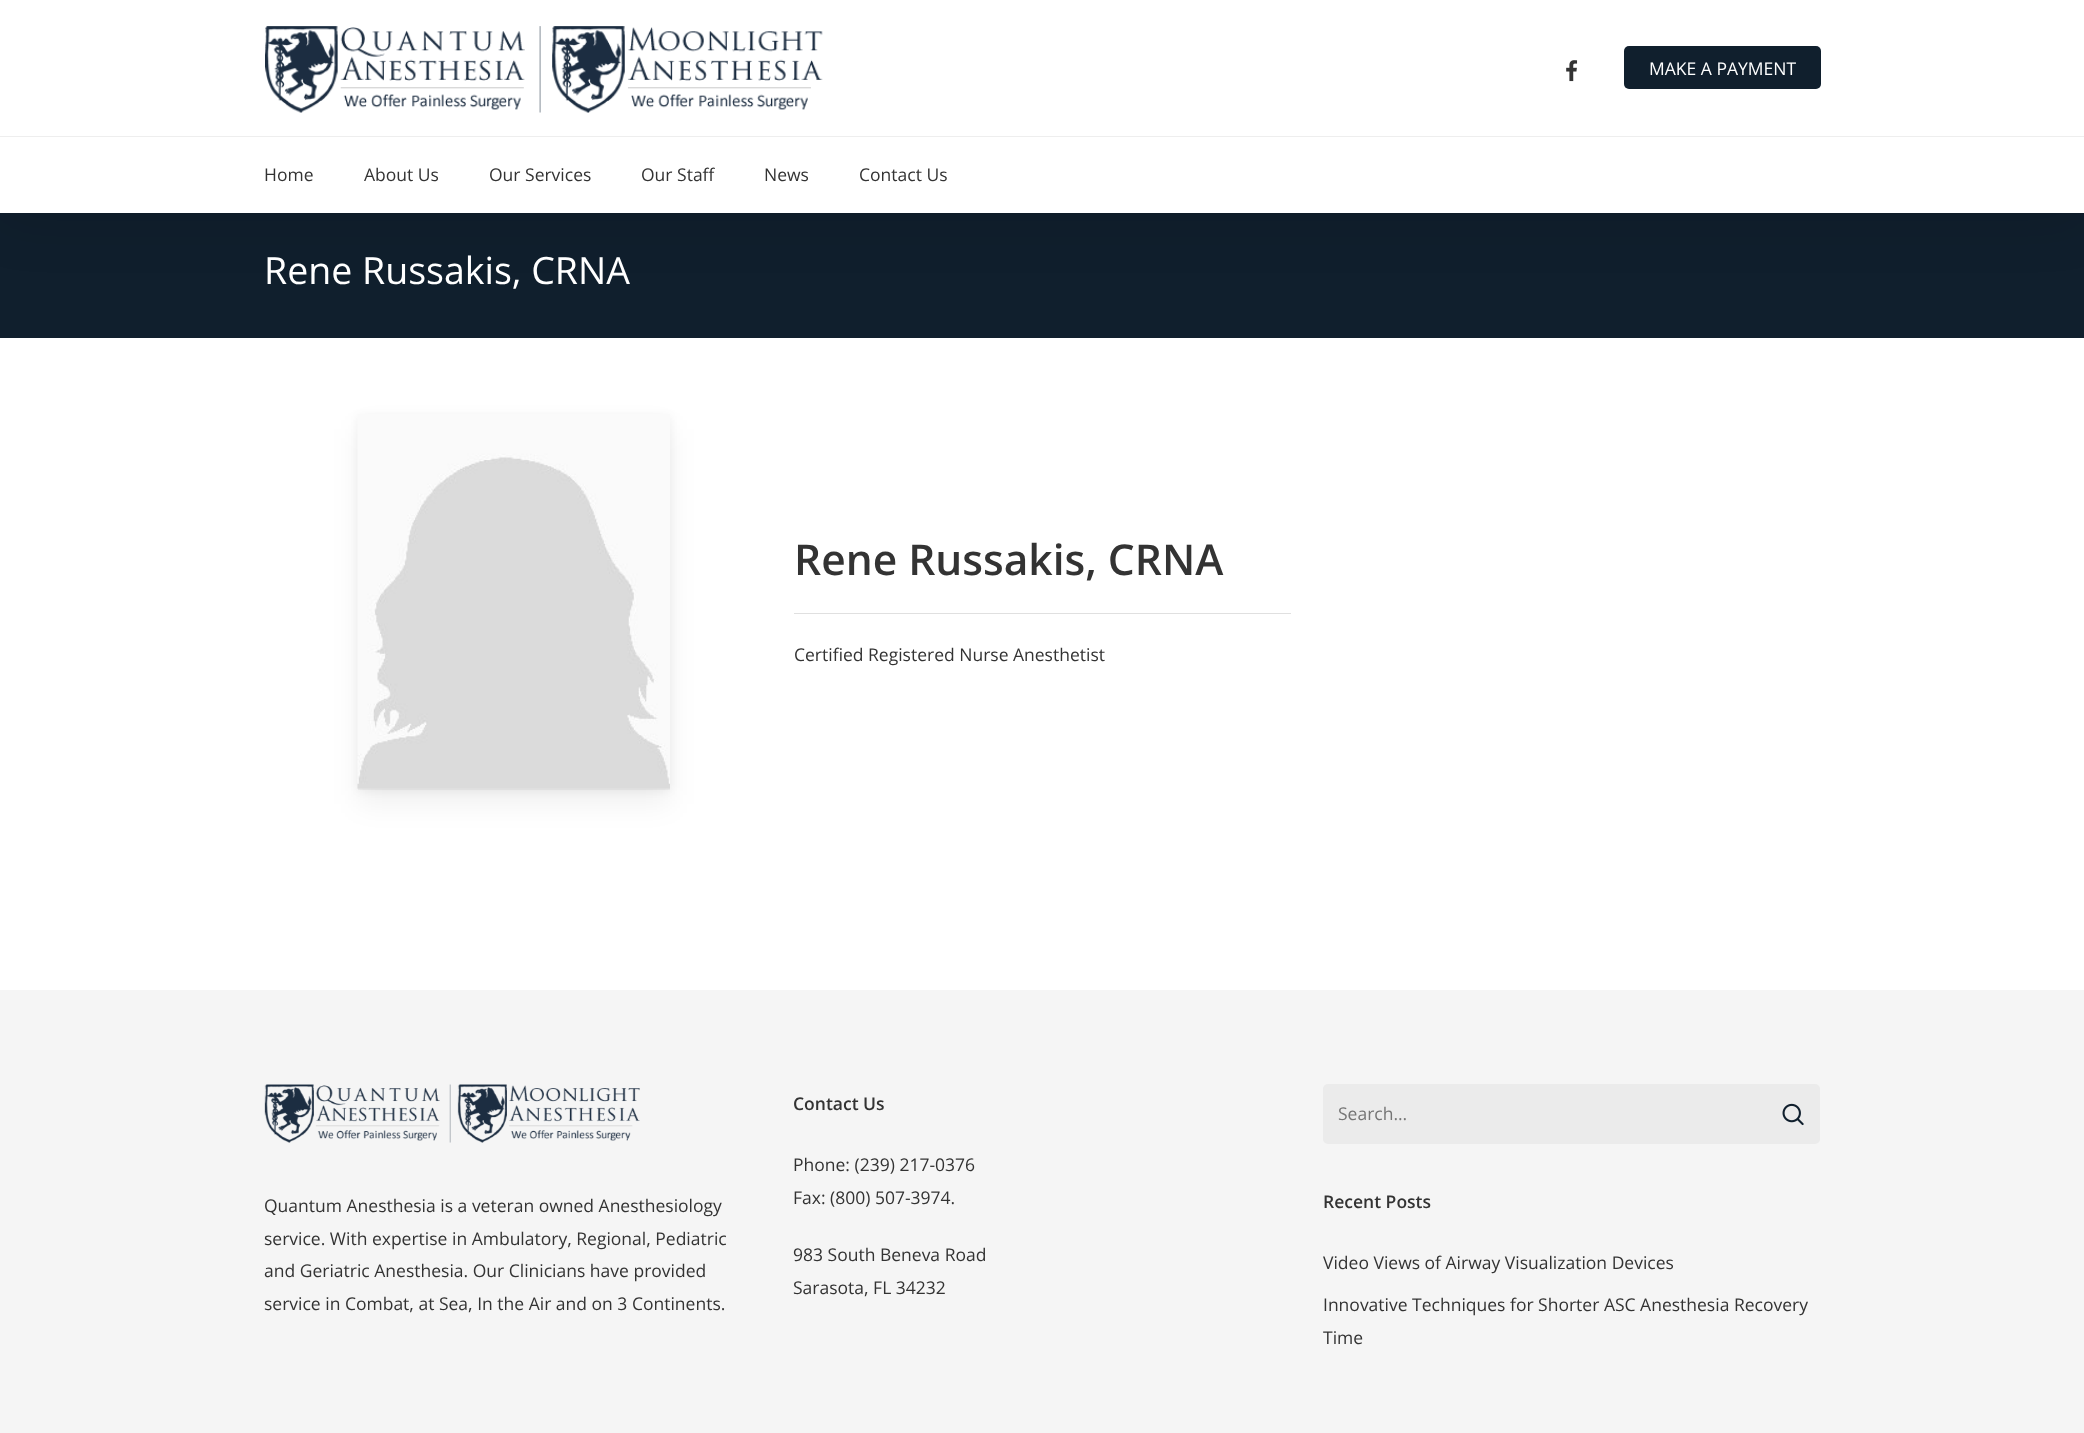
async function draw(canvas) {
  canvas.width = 2084;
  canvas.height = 1433;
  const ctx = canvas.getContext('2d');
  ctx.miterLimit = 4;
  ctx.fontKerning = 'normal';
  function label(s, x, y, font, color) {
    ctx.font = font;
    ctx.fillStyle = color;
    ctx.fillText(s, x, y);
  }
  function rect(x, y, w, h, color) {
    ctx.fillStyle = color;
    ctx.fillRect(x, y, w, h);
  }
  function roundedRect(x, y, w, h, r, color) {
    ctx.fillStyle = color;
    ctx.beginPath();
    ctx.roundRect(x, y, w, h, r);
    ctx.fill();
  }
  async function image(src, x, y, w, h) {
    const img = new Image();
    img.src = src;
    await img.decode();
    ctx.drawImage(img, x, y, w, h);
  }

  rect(0, 0, 2084, 1433, '#fff');
  rect(0, 213, 2084, 125, '#101f2d');
  ctx.fillStyle = '#00000026';
  ctx.filter = 'blur(28px)';
  ctx.beginPath();
  ctx.rect(0, 4, 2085, 212);
  ctx.fill();
  ctx.filter = 'none';
  rect(0, 0, 2084, 213, '#fff');
  await image('assets/img1.png', 265, 26, 558, 87);
  await image('assets/img2.png', 1566, 60, 12, 22);
  roundedRect(1624, 46, 197, 43, 5, '#101f2d');
  label('MAKE A PAYMENT', 1649, 75, '17.5px Open Sans', '#fff');
  rect(0, 136, 2084, 1, '#eee');
  label('Home', 264, 181, '17.5px Open Sans', '#333');
  label('About Us', 364, 181, '17.5px Open Sans', '#333');
  label('Our Services', 489, 181, '17.5px Open Sans', '#333');
  label('Our Staff', 641, 181, '17.5px Open Sans', '#333');
  label('News', 764, 181, '17.5px Open Sans', '#333');
  label('Contact Us', 859, 181, '17.5px Open Sans', '#333');
  label('Rene Russakis, CRNA', 264, 284, '37.5px Open Sans', '#fff');
  ctx.fillStyle = '#0000000f';
  ctx.filter = 'blur(14px)';
  ctx.beginPath();
  ctx.rect(358, 429, 312, 375);
  ctx.fill();
  ctx.filter = 'none';
  ctx.fillStyle = '#0000000d';
  ctx.filter = 'blur(4.5px)';
  ctx.beginPath();
  ctx.rect(358, 416, 312, 375);
  ctx.fill();
  ctx.filter = 'none';
  rect(358, 789, 312, 1, '#0000000a');
  await image('assets/img3.png', 357, 414, 313, 375);
  label('Rene Russakis, CRNA', 794, 575, '600 42.5px Open Sans', '#333');
  rect(794, 613, 497, 1, '#e0e0e0');
  label('Certified Registered Nurse Anesthetist', 794, 661, '17.5px Open Sans', '#333');
  rect(0, 990, 2084, 443, '#f5f5f5');
  await image('assets/img4.png', 264, 1084, 376, 59);
  label('Quantum Anesthesia is a veteran owned Anesthesiology', 264, 1212, '17.5px Open Sans', '#333');
  label('service. With expertise in Ambulatory, Regional, Pediatric', 264, 1245, '17.5px Open Sans', '#333');
  label('and Geriatric Anesthesia. Our Clinicians have provided', 264, 1277, '17.5px Open Sans', '#333');
  label('service in Combat, at Sea, In the Air and on 3 Continents.', 264, 1310, '17.5px Open Sans', '#333');
  label('Contact Us', 793, 1110, '600 17.5px Open Sans', '#333');
  label('Phone: (239) 217-0376', 793, 1171, '17.5px Open Sans', '#333');
  label('Fax: (800) 507-3974.', 793, 1204, '17.5px Open Sans', '#333');
  label('983 South Beneva Road', 793, 1261, '17.5px Open Sans', '#333');
  label('Sarasota, FL 34232', 793, 1294, '17.5px Open Sans', '#333');
  roundedRect(1323, 1084, 497, 60, 5, '#ebebeb');
  label('Search...', 1338, 1120, '17.5px Open Sans', '#757575');
  await image('assets/img5.png', 1782, 1103, 22, 23);
  label('Recent Posts', 1323, 1208, '600 17.5px Open Sans', '#333');
  label('Video Views of Airway Visualization Devices', 1323, 1269, '17.5px Open Sans', '#333');
  label('Innovative Techniques for Shorter ASC Anesthesia Recovery', 1323, 1311, '17.5px Open Sans', '#333');
  label('Time', 1323, 1344, '17.5px Open Sans', '#333');
}

draw(document.querySelector('canvas'));
